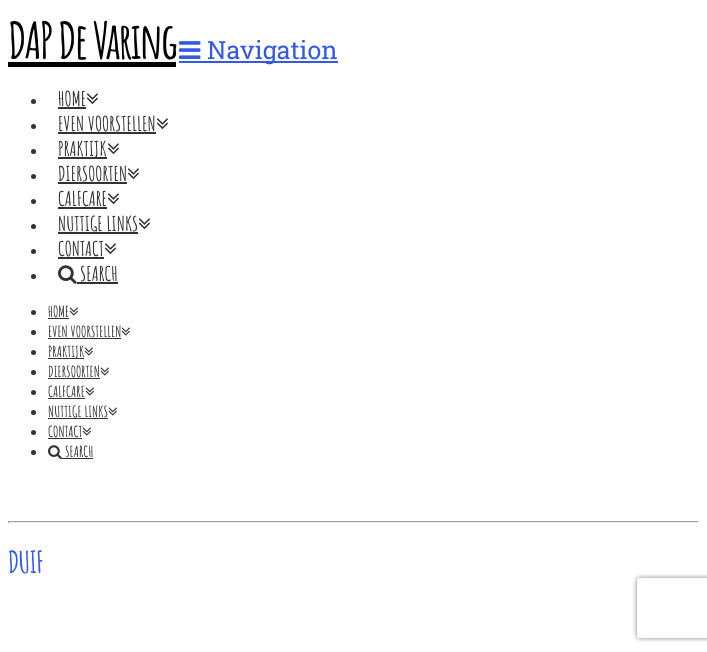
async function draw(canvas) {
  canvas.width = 707;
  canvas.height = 652;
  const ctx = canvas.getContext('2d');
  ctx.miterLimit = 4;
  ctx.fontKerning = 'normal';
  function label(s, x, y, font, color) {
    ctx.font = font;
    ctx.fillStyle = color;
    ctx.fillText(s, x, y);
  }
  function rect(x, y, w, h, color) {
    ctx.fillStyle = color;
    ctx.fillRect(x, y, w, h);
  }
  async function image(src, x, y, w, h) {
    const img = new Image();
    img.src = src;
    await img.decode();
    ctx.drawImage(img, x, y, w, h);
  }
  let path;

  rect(0, 0, 707, 652, '#fff');
  ctx.letterSpacing = '-2.5px';
  label('DAP De Varing', 8, 59, 'bold 50px Amatic SC', '#000');
  rect(8, 62, 168, 5, '#000');
  rect(179, 61, 159, 2, '#325ae6');
  ctx.letterSpacing = '0px';
  label('Navigation', 207, 59, '25px Roboto Slab', '#325ae6');
  await image('assets/img1.png', 179, 41, 22, 18);
  ctx.fillStyle = '#323232';
  ctx.beginPath();
  ctx.arc(33.5, 101.5, 2.5, 0, 2 * Math.PI);
  ctx.fill();
  label('HOME', 58, 106, 'bold 20px Amatic SC', '#323232');
  rect(58, 107, 28, 2, '#323232');
  await image('assets/img2.png', 86, 93, 12, 11);
  ctx.beginPath();
  ctx.arc(33.5, 126.5, 2.5, 0, 2 * Math.PI);
  ctx.fill();
  label('EVEN VOORSTELLEN', 58, 131, 'bold 20px Amatic SC', '#323232');
  rect(58, 132, 98, 2, '#323232');
  await image('assets/img2.png', 156, 118, 12, 11);
  ctx.beginPath();
  ctx.arc(33.5, 151.5, 2.5, 0, 2 * Math.PI);
  ctx.fill();
  rect(58, 157, 49, 2, '#323232');
  label('PRAKTIJK', 58, 156, 'bold 20px Amatic SC', '#323232');
  await image('assets/img2.png', 107, 143, 12, 11);
  ctx.beginPath();
  ctx.arc(33.5, 176.5, 2.5, 0, 2 * Math.PI);
  ctx.fill();
  label('DIERSOORTEN', 58, 181, 'bold 20px Amatic SC', '#323232');
  rect(58, 182, 69, 2, '#323232');
  await image('assets/img2.png', 127, 168, 12, 11);
  ctx.beginPath();
  ctx.arc(33.5, 201.5, 2.5, 0, 2 * Math.PI);
  ctx.fill();
  label('CALFCARE', 58, 206, 'bold 20px Amatic SC', '#323232');
  rect(58, 207, 49, 2, '#323232');
  await image('assets/img2.png', 107, 193, 12, 11);
  ctx.beginPath();
  ctx.arc(33.5, 226.5, 2.5, 0, 2 * Math.PI);
  ctx.fill();
  label('NUTTIGE LINKS', 58, 231, 'bold 20px Amatic SC', '#323232');
  rect(58, 232, 80, 2, '#323232');
  await image('assets/img2.png', 138, 218, 12, 11);
  ctx.beginPath();
  ctx.arc(33.5, 251.5, 2.5, 0, 2 * Math.PI);
  ctx.fill();
  label('CONTACT', 58, 256, 'bold 20px Amatic SC', '#323232');
  rect(58, 257, 46, 2, '#323232');
  await image('assets/img2.png', 104, 243, 12, 11);
  ctx.beginPath();
  ctx.arc(33.5, 276.5, 2.5, 0, 2 * Math.PI);
  ctx.fill();
  await image('assets/img3.png', 58, 265, 19, 19);
  label('SEARCH', 80, 281, 'bold 20px Amatic SC', '#323232');
  rect(77, 282, 41, 2, '#323232');
  ctx.beginPath();
  ctx.arc(33.5, 312.5, 2.5, 0, 2 * Math.PI);
  ctx.fill();
  label('HOME', 48, 317, 'bold 15px Amatic SC', '#323232');
  rect(48, 318, 21, 1, '#323232');
  await image('assets/img4.png', 69, 307, 9, 9);
  ctx.beginPath();
  ctx.arc(33.5, 332.5, 2.5, 0, 2 * Math.PI);
  ctx.fill();
  label('EVEN VOORSTELLEN', 48, 337, 'bold 15px Amatic SC', '#323232');
  rect(48, 338, 73, 1, '#323232');
  await image('assets/img4.png', 121, 327, 9, 9);
  ctx.beginPath();
  ctx.arc(33.5, 352.5, 2.5, 0, 2 * Math.PI);
  ctx.fill();
  rect(48, 358, 36, 1, '#323232');
  label('PRAKTIJK', 48, 357, 'bold 15px Amatic SC', '#323232');
  await image('assets/img4.png', 84, 347, 9, 9);
  ctx.beginPath();
  ctx.arc(33.5, 372.5, 2.5, 0, 2 * Math.PI);
  ctx.fill();
  label('DIERSOORTEN', 48, 377, 'bold 15px Amatic SC', '#323232');
  rect(48, 378, 52, 1, '#323232');
  await image('assets/img4.png', 100, 367, 9, 9);
  ctx.beginPath();
  ctx.arc(33.5, 392.5, 2.5, 0, 2 * Math.PI);
  ctx.fill();
  label('CALFCARE', 48, 397, 'bold 15px Amatic SC', '#323232');
  rect(48, 398, 37, 1, '#323232');
  await image('assets/img4.png', 85, 387, 9, 9);
  ctx.beginPath();
  ctx.arc(33.5, 412.5, 2.5, 0, 2 * Math.PI);
  ctx.fill();
  label('NUTTIGE LINKS', 48, 417, 'bold 15px Amatic SC', '#323232');
  rect(48, 418, 60, 1, '#323232');
  await image('assets/img4.png', 108, 407, 9, 9);
  ctx.beginPath();
  ctx.arc(33.5, 432.5, 2.5, 0, 2 * Math.PI);
  ctx.fill();
  label('CONTACT', 48, 437, 'bold 15px Amatic SC', '#323232');
  rect(48, 438, 34, 1, '#323232');
  await image('assets/img4.png', 82, 427, 9, 9);
  ctx.beginPath();
  ctx.arc(33.5, 452.5, 2.5, 0, 2 * Math.PI);
  ctx.fill();
  await image('assets/img5.png', 48, 445, 14, 15);
  label('SEARCH', 65, 457, 'bold 15px Amatic SC', '#323232');
  rect(62, 458, 31, 1, '#323232');
  rect(8, 521, 691, 1, '#9f9f9f');
  rect(698, 521, 1, 2, '#eee');
  rect(8, 522, 691, 1, '#eee');
  rect(8, 521, 1, 2, '#9f9f9f');
  ctx.letterSpacing = '-1px';
  label('DUIF', 8, 573, 'bold 30px Amatic SC', '#325ae6');
  ctx.save();
  path = new Path2D('M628 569H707V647H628ZM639 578H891C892 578 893 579 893 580V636C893 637 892 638 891 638H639C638 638 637 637 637 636V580C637 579 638 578 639 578Z');
  ctx.clip(path, 'evenodd');
  ctx.fillStyle = '#808080';
  ctx.filter = 'blur(2.5px)';
  ctx.beginPath();
  ctx.roundRect(637, 578, 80, 60, 2);
  ctx.fill();
  ctx.filter = 'none';
  ctx.restore();
}

draw(document.querySelector('canvas'));
